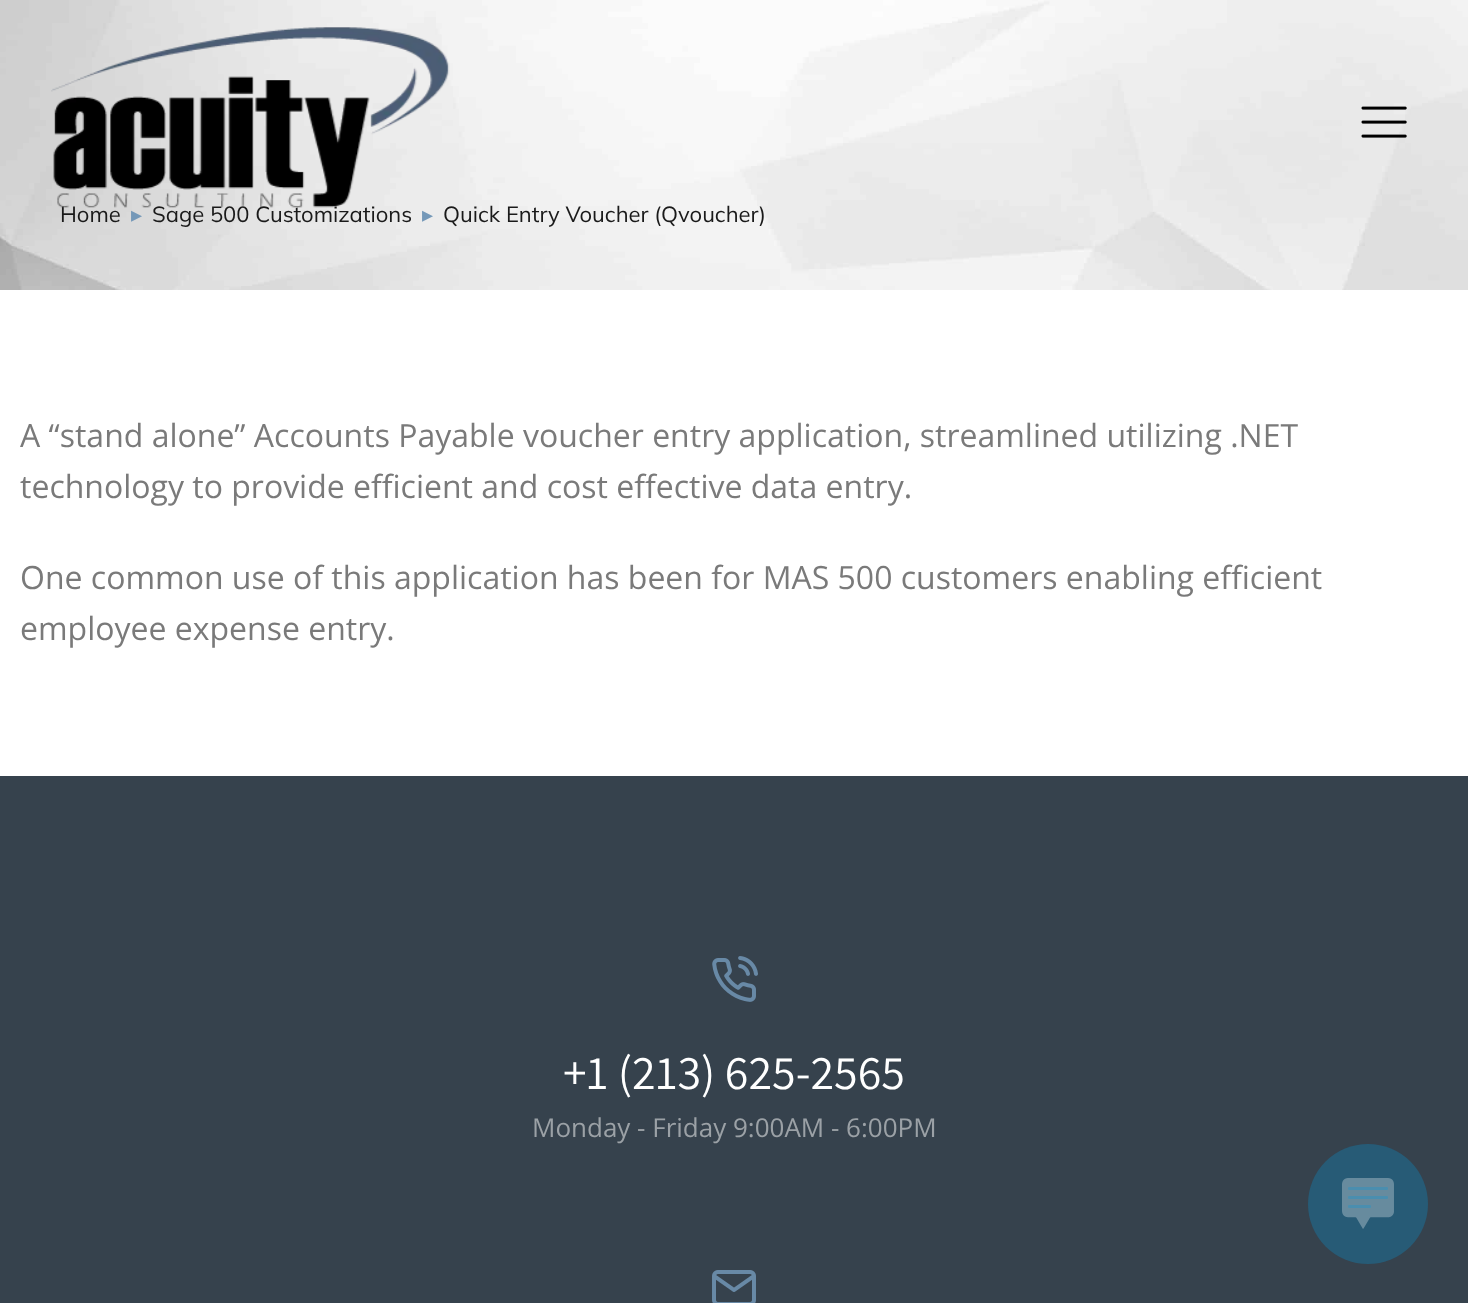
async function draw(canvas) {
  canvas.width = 1468;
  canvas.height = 1303;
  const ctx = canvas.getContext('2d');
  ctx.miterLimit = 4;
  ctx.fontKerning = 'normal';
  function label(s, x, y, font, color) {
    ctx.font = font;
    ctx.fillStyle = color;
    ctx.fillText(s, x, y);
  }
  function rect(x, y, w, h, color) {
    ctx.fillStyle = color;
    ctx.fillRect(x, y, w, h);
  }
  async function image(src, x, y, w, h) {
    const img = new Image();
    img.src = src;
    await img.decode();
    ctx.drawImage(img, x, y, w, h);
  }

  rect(0, 0, 1468, 1303, '#fff');
  await image('assets/img3.png', 0, 0, 1468, 290);
  label('Home', 60, 222, '22px Mulish', '#1a1a1a');
  label('Sage 500 Customizations', 152, 222, '22px Mulish', '#1a1a1a');
  label('Quick Entry Voucher (Qvoucher)', 443, 222, '22px Mulish', '#1a1a1a');
  await image('assets/img1.png', 51, 27, 399, 181);
  await image('assets/img2.png', 1361, 106, 46, 32);
  label('▸', 131, 222, '22px DejaVu Sans', '#7498b8');
  label('▸', 422, 222, '22px DejaVu Sans', '#7498b8');
  label('A “stand alone” Accounts Payable voucher entry application, streamlined utilizing .NET', 20, 447, '32px Open Sans', '#7a7a7a');
  label('technology to provide efficient and cost effective data entry.', 20, 498, '32px Open Sans', '#7a7a7a');
  label('One common use of this application has been for MAS 500 customers enabling efficient', 20, 589, '32px Open Sans', '#7a7a7a');
  label('employee expense entry.', 20, 640, '32px Open Sans', '#7a7a7a');
  rect(0, 776, 1468, 527, '#36424d');
  await image('assets/img4.png', 712, 956, 46, 46);
  label('+1 (213) 625-2565', 563, 1089, '48px Assistant', '#fff');
  label('Monday - Friday 9:00AM - 6:00PM', 532, 1137, '26px Open Sans', '#9ba1a6');
  await image('assets/img5.png', 712, 1270, 44, 33);
  ctx.fillStyle = '#275b76';
  ctx.beginPath();
  ctx.arc(1368, 1204, 60, 0, 2 * Math.PI);
  ctx.fill();
  await image('assets/img6.png', 1342, 1178, 52, 51);
}

draw(document.querySelector('canvas'));
